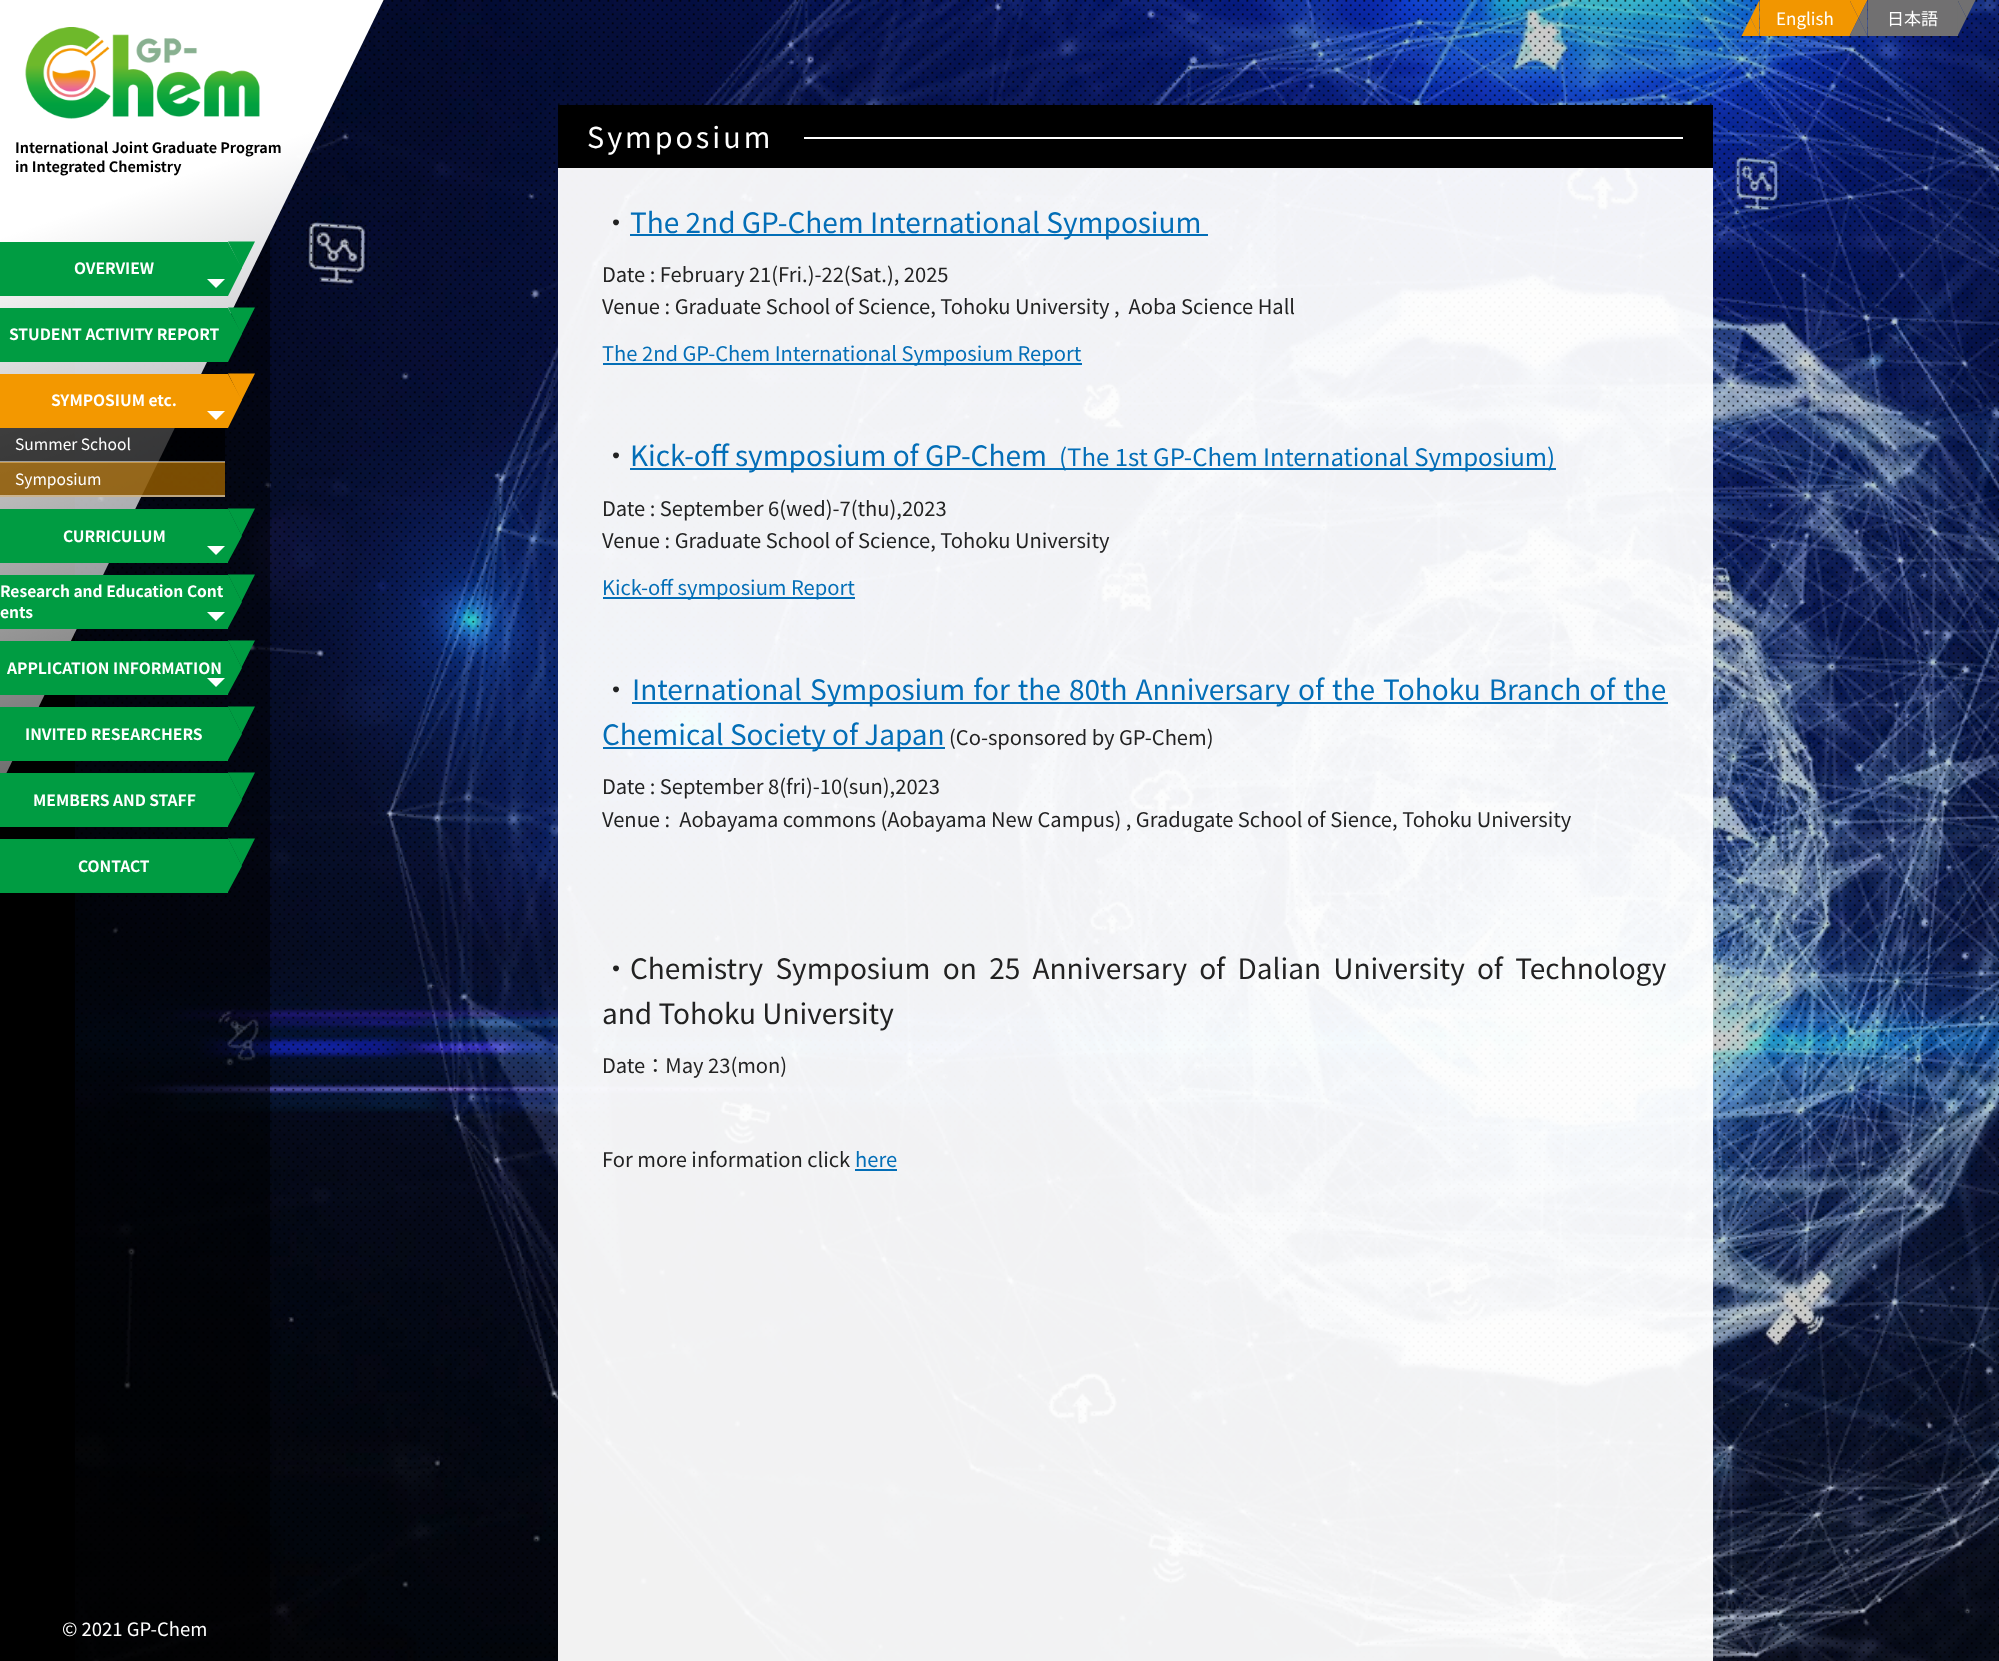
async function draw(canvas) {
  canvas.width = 1999;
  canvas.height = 1661;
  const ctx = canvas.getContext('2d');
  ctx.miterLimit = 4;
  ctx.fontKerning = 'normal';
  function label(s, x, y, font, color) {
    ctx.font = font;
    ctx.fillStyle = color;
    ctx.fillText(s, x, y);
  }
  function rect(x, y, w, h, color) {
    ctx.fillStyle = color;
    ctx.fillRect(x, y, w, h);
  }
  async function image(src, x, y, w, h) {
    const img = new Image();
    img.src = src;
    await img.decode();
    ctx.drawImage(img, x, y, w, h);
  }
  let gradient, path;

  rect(0, 0, 1999, 1661, '#000');
  await image('assets/img1.png', 75, 0, 1924, 1661);
  await image('assets/img2.png', 76, 0, 1923, 1661);
  rect(1760, 0, 90, 36, '#f29600');
  path = new Path2D('M1759.5 0V36L1750.5 18Z');
  ctx.fill(path);
  path = new Path2D('M1759.5 36H1741.5L1750.5 18Z');
  ctx.fill(path);
  label('English', 1776, 25, '17px Noto Sans JP', '#fff');
  ctx.fillStyle = '#f29600';
  path = new Path2D('M1849.5 0H1867.5L1858.5 18Z');
  ctx.fill(path);
  path = new Path2D('M1849.5 36V0L1858.5 18Z');
  ctx.fill(path);
  rect(1868, 0, 90, 36, '#717071');
  path = new Path2D('M1867.5 0V36L1858.5 18Z');
  ctx.fill(path);
  path = new Path2D('M1867.5 36H1849.5L1858.5 18Z');
  ctx.fill(path);
  label('日本語', 1887, 25, '17px Noto Sans JP', '#fff');
  ctx.fillStyle = '#717071';
  path = new Path2D('M1957.5 0H1975.5L1966.5 18Z');
  ctx.fill(path);
  path = new Path2D('M1957.5 36V0L1966.5 18Z');
  ctx.fill(path);
  rect(75, 151, 195, 1510, '#00000080');
  gradient = ctx.createLinearGradient(-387, -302, 27, 902);
  gradient.addColorStop(0, '#fff');
  gradient.addColorStop(0.5, '#fff');
  gradient.addColorStop(1, '#ffffff4d');
  ctx.fillStyle = gradient;
  path = new Path2D('M-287-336L387-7L-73 936L-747 607Z');
  ctx.fill(path);
  await image('assets/img3.png', 25, 27, 235, 92);
  label('International Joint Graduate Program', 15, 153, 'bold 14.4px Noto Sans JP', '#000');
  label('in Integrated Chemistry', 15, 172, 'bold 14.4px Noto Sans JP', '#000');
  rect(0, 242, 228, 54, '#009c42');
  label('OVERVIEW', 74, 274, 'bold 15.6px Noto Sans JP', '#fff');
  ctx.fillStyle = '#009c42';
  path = new Path2D('M228 241.5H255L241.5 268.5Z');
  ctx.fill(path);
  path = new Path2D('M228 296V242L242 268Z');
  ctx.fill(path);
  ctx.fillStyle = '#fff';
  path = new Path2D('M207 279H225L216 288Z');
  ctx.fill(path);
  rect(0, 308, 228, 54, '#009c42');
  label('STUDENT ACTIVITY REPORT', 9, 340, 'bold 15.6px Noto Sans JP', '#fff');
  ctx.fillStyle = '#009c42';
  path = new Path2D('M228 307.5H255L241.5 334.5Z');
  ctx.fill(path);
  path = new Path2D('M228 362V308L242 334Z');
  ctx.fill(path);
  rect(0, 374, 228, 54, '#f39800');
  label('SYMPOSIUM etc.', 51, 406, 'bold 15.6px Noto Sans JP', '#fff');
  ctx.fillStyle = '#f39800';
  path = new Path2D('M228 373.5H255L241.5 400.5Z');
  ctx.fill(path);
  path = new Path2D('M228 428V374L242 400Z');
  ctx.fill(path);
  ctx.fillStyle = '#fff';
  path = new Path2D('M207 411H225L216 420Z');
  ctx.fill(path);
  rect(0, 428, 225, 69, '#000000b3');
  rect(0, 461, 225, 2, '#ffffff80');
  label('Summer School', 15, 450, '15.6px Noto Sans JP', '#fff');
  rect(0, 462, 225, 35, '#f3980080');
  rect(0, 495, 225, 2, '#ffffff80');
  label('Symposium', 15, 485, '15.6px Noto Sans JP', '#fff');
  rect(0, 509, 228, 54, '#009c42');
  label('CURRICULUM', 63, 542, 'bold 15.6px Noto Sans JP', '#fff');
  ctx.fillStyle = '#009c42';
  path = new Path2D('M228 508.5H255L241.5 535.5Z');
  ctx.fill(path);
  path = new Path2D('M228 562V508L242 536Z');
  ctx.fill(path);
  ctx.fillStyle = '#fff';
  path = new Path2D('M207 546H225L216 555Z');
  ctx.fill(path);
  rect(0, 575, 228, 54, '#009c42');
  label('Research and Education Cont', 0, 597, 'bold 15.6px Noto Sans JP', '#fff');
  ctx.fillStyle = '#009c42';
  path = new Path2D('M228 574.5H255L241.5 601.5Z');
  ctx.fill(path);
  path = new Path2D('M228 628V574L242 602Z');
  ctx.fill(path);
  label('ents', 0, 618, 'bold 15.6px Noto Sans JP', '#fff');
  path = new Path2D('M207 612H225L216 621Z');
  ctx.fill(path);
  rect(0, 641, 228, 54, '#009c42');
  label('APPLICATION INFORMATION', 7, 674, 'bold 15.6px Noto Sans JP', '#fff');
  ctx.fillStyle = '#009c42';
  path = new Path2D('M228 640.5H255L241.5 667.5Z');
  ctx.fill(path);
  path = new Path2D('M228 694V640L242 668Z');
  ctx.fill(path);
  ctx.fillStyle = '#fff';
  path = new Path2D('M207 678H225L216 687Z');
  ctx.fill(path);
  rect(0, 707, 228, 54, '#009c42');
  label('INVITED RESEARCHERS', 25, 740, 'bold 15.6px Noto Sans JP', '#fff');
  ctx.fillStyle = '#009c42';
  path = new Path2D('M228 706.5H255L241.5 733.5Z');
  ctx.fill(path);
  path = new Path2D('M228 760V706L242 734Z');
  ctx.fill(path);
  rect(0, 773, 228, 54, '#009c42');
  label('MEMBERS AND STAFF', 33, 806, 'bold 15.6px Noto Sans JP', '#fff');
  ctx.fillStyle = '#009c42';
  path = new Path2D('M228 772.5H255L241.5 799.5Z');
  ctx.fill(path);
  path = new Path2D('M228 826V772L242 800Z');
  ctx.fill(path);
  rect(0, 839, 228, 54, '#009c42');
  label('CONTACT', 78, 872, 'bold 15.6px Noto Sans JP', '#fff');
  ctx.fillStyle = '#009c42';
  path = new Path2D('M228 838.5H255L241.5 865.5Z');
  ctx.fill(path);
  path = new Path2D('M228 892V838L242 866Z');
  ctx.fill(path);
  rect(558, 168, 1155, 1493, '#fffffff2');
  rect(558, 105, 1155, 63, '#000');
  ctx.letterSpacing = '3px';
  label('Symposium', 587, 148, '28.75px Noto Sans JP', '#fff');
  rect(804, 137, 879, 2, '#fff');
  ctx.letterSpacing = '0px';
  label('・', 602, 233, '28px Noto Sans JP', '#222');
  rect(630, 234, 578, 2, '#036eb7');
  label('The 2nd GP-Chem International Symposium', 630, 233, '28px Noto Sans JP', '#036eb7');
  label('Date : February 21(Fri.)-22(Sat.), 2025', 602, 282, '20.15px Noto Sans JP', '#222');
  label('Venue : Graduate School of Science, Tohoku University ,  Aoba Science Hall', 602, 314, '20.15px Noto Sans JP', '#222');
  rect(603, 363, 479, 2, '#036eb7');
  label('The 2nd GP-Chem International Symposium Report', 602, 361, '20.15px Noto Sans JP', '#036eb7');
  label('・', 602, 466, '28px Noto Sans JP', '#222');
  rect(630, 468, 926, 2, '#036eb7');
  label('Kick-off symposium of GP-Chem', 630, 466, '28px Noto Sans JP', '#036eb7');
  label('(The 1st GP-Chem International Symposium)', 1059, 466, '24px Noto Sans JP', '#036eb7');
  label('Date : September 6(wed)-7(thu),2023', 602, 516, '20.15px Noto Sans JP', '#222');
  label('Venue : Graduate School of Science, Tohoku University', 602, 548, '20.15px Noto Sans JP', '#222');
  rect(603, 597, 252, 2, '#036eb7');
  label('Kick-off symposium Report', 602, 595, '20.15px Noto Sans JP', '#036eb7');
  label('・', 602, 700, '28px Noto Sans JP', '#222');
  rect(632, 702, 1036, 2, '#036eb7');
  ctx.wordSpacing = '1.75px';
  label('International Symposium for the 80th Anniversary of the Tohoku Branch of the', 632, 700, '28px Noto Sans JP', '#036eb7');
  rect(603, 747, 342, 2, '#036eb7');
  ctx.wordSpacing = '0px';
  label('Chemical Society of Japan', 602, 745, '28px Noto Sans JP', '#036eb7');
  label('(Co-sponsored by GP-Chem)', 949, 745, '20.15px Noto Sans JP', '#222');
  label('Date : September 8(fri)-10(sun),2023', 602, 794, '20.15px Noto Sans JP', '#222');
  label('Venue :  Aobayama commons (Aobayama New Campus) , Gradugate School of Sience, Tohoku University', 602, 827, '20.15px Noto Sans JP', '#222');
  ctx.wordSpacing = '6px';
  label('・Chemistry Symposium on 25 Anniversary of Dalian University of Technology', 602, 979, '28px Noto Sans JP', '#222');
  ctx.wordSpacing = '0px';
  label('and Tohoku University', 602, 1024, '28px Noto Sans JP', '#222');
  label('Date：May 23(mon)', 602, 1073, '20.15px Noto Sans JP', '#222');
  label('For more information click', 602, 1167, '20.15px Noto Sans JP', '#222');
  label('here', 855, 1167, '20.15px Noto Sans JP', '#036eb7');
  rect(855, 1169, 42, 2, '#036eb7');
  label('© 2021 GP-Chem', 62, 1636, '18.5px Noto Sans JP', '#fff');
}

draw(document.querySelector('canvas'));
